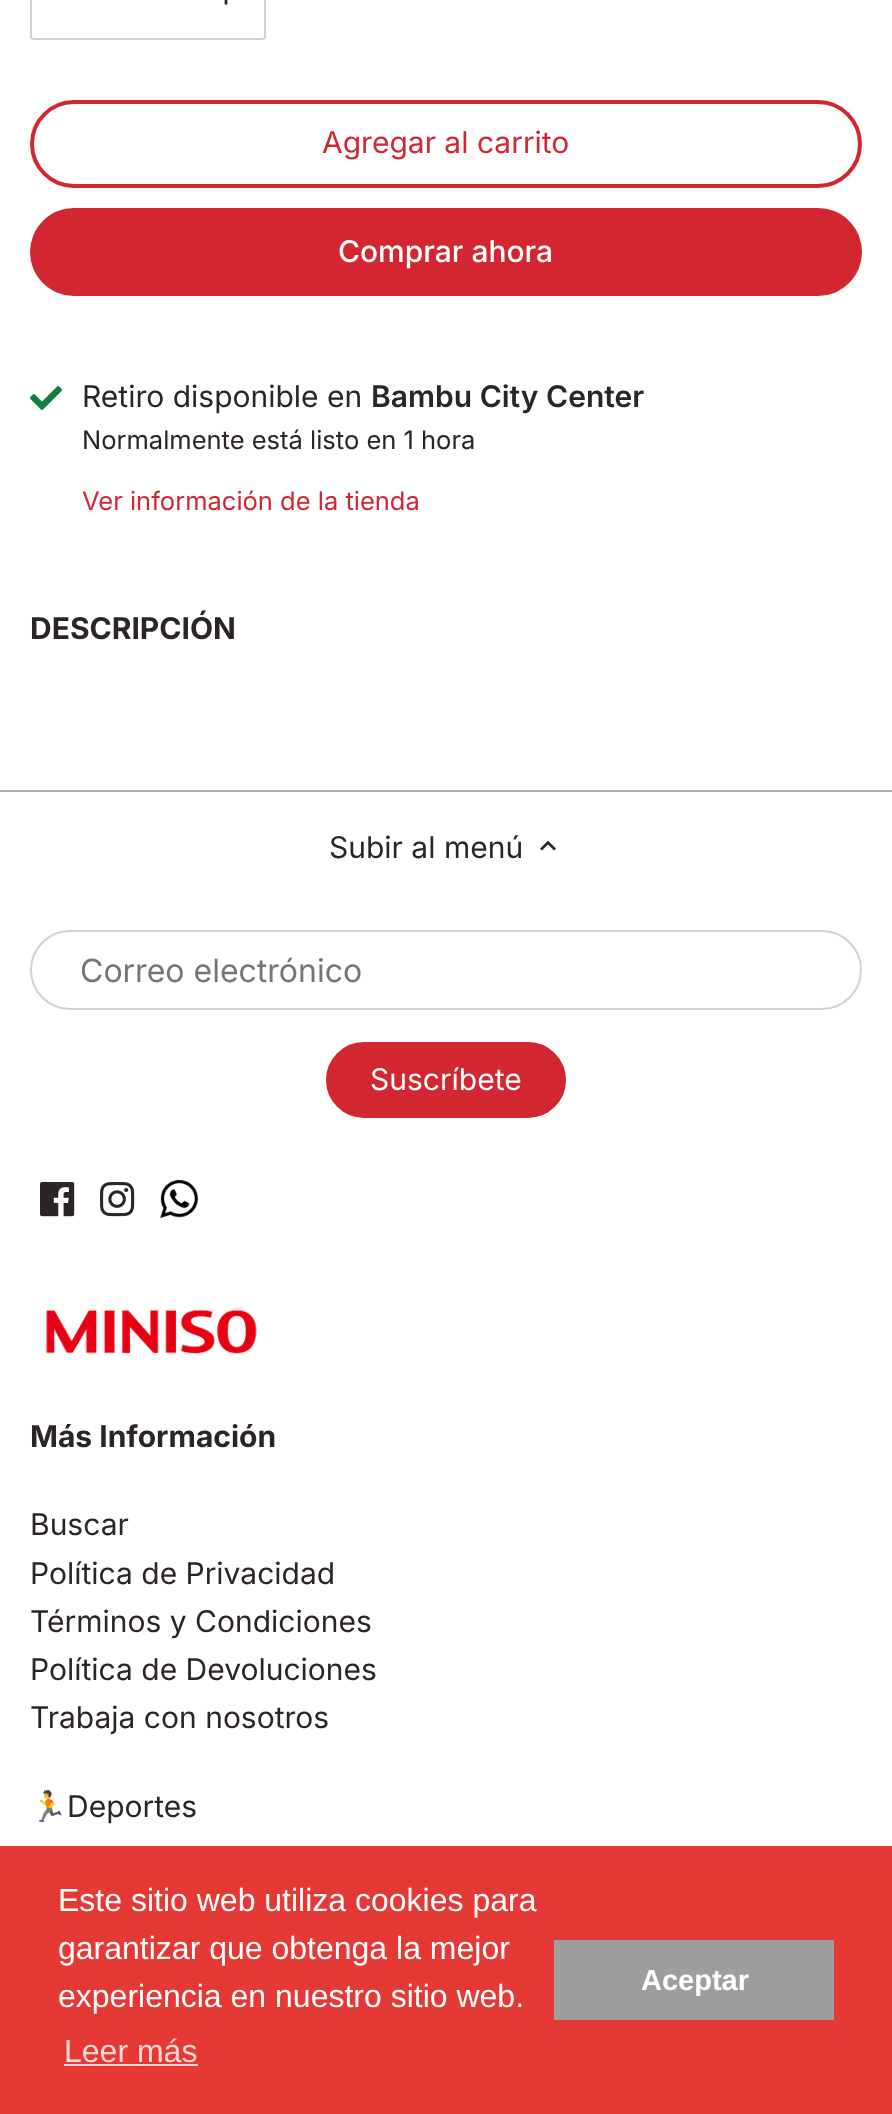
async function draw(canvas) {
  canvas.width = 892;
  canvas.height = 2114;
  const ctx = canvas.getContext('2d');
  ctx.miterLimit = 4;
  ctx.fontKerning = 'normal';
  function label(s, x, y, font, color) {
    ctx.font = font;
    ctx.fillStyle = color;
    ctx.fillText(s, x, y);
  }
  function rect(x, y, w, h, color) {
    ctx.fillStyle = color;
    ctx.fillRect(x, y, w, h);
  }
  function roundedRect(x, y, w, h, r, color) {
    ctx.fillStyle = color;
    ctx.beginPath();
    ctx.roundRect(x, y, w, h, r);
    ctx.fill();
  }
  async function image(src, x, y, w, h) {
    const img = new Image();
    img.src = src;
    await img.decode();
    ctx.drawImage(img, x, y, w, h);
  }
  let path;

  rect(0, 0, 892, 2114, '#fff');
  ctx.beginPath();
  ctx.roundRect(31, -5, 234, 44, 3);
  ctx.strokeStyle = '#d3d1d2';
  ctx.lineWidth = 2;
  ctx.stroke();
  path = new Path2D('M226-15.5V3.5');
  ctx.strokeStyle = '#2c2528';
  ctx.lineWidth = 2.7;
  ctx.lineCap = 'round';
  ctx.lineJoin = 'round';
  ctx.stroke(path);
  ctx.beginPath();
  ctx.roundRect(32, 102, 828, 84, 42);
  ctx.strokeStyle = '#d22630';
  ctx.lineWidth = 4;
  ctx.lineJoin = 'miter';
  ctx.stroke();
  label('Agregar al carrito', 322, 153, '30px Inter', '#d22630');
  roundedRect(30, 208, 832, 88, 44, '#d22630');
  label('Comprar ahora', 338, 262, '500 30px Inter', '#fff');
  await image('assets/img1.png', 30, 386, 32, 24);
  label('Retiro disponible en', 82, 407, '30px Inter', '#2c2528');
  label('Bambu City Center', 371, 407, '600 30px Inter', '#2c2528');
  label('Normalmente está listo en 1 hora', 82, 449, '25.5px Inter', '#2c2528');
  label('Ver información de la tienda', 82, 510, '25.5px Inter', '#d22630');
  label('DESCRIPCIÓN', 30, 639, 'bold 30px Inter', '#2c2528');
  rect(0, 790, 892, 2, '#aeaeb5');
  label('Subir al menú', 329, 858, '30px Inter', '#2c2528');
  await image('assets/img2.png', 540, 840, 16, 11);
  ctx.beginPath();
  ctx.roundRect(31, 931, 830, 78, 39);
  ctx.strokeStyle = '#d3d1d2';
  ctx.lineWidth = 2;
  ctx.stroke();
  label('Correo electrónico', 80, 982, '32px Inter', '#757575');
  ctx.fillStyle = '#d22630';
  ctx.beginPath();
  ctx.roundRect(327, 1043, 238, 74, 37);
  ctx.fill();
  ctx.strokeStyle = '#d22630';
  ctx.stroke();
  label('Suscríbete', 370, 1090, '30px Inter', '#fff');
  await image('assets/img3.png', 40, 1182, 35, 35);
  await image('assets/img4.png', 100, 1182, 35, 35);
  await image('assets/img5.png', 160, 1180, 38, 38);
  await image('assets/img6.png', 46, 1309, 211, 45);
  label('Más Información', 30, 1447, 'bold 30px Inter', '#2c2528');
  label('Buscar', 30, 1535, '30px Inter', '#2c2528');
  label('Política de Privacidad', 30, 1584, '30px Inter', '#2c2528');
  label('Términos y Condiciones', 30, 1632, '30px Inter', '#2c2528');
  label('Política de Devoluciones', 30, 1680, '30px Inter', '#2c2528');
  label('Trabaja con nosotros', 30, 1728, '30px Inter', '#2c2528');
  label('🏃', 30, 1817, '30px Noto Color Emoji', '#2c2528');
  label('Deportes', 67, 1817, '30px Inter', '#2c2528');
  rect(0, 1846, 892, 268, '#e53935');
  label('Este sitio web utiliza cookies para', 58, 1911, '32px Liberation Sans', '#fff');
  label('garantizar que obtenga la mejor', 58, 1959, '32px Liberation Sans', '#fff');
  label('experiencia en nuestro sitio web.', 58, 2007, '32px Liberation Sans', '#fff');
  label('Leer más', 64, 2062, '32px Liberation Sans', '#fad7d7');
  rect(64, 2064, 134, 2, '#fad7d7');
  rect(554, 1940, 280, 80, '#9e9e9e');
  label('Aceptar', 641, 1990, 'bold 29px Liberation Sans', '#fff');
}

draw(document.querySelector('canvas'));
